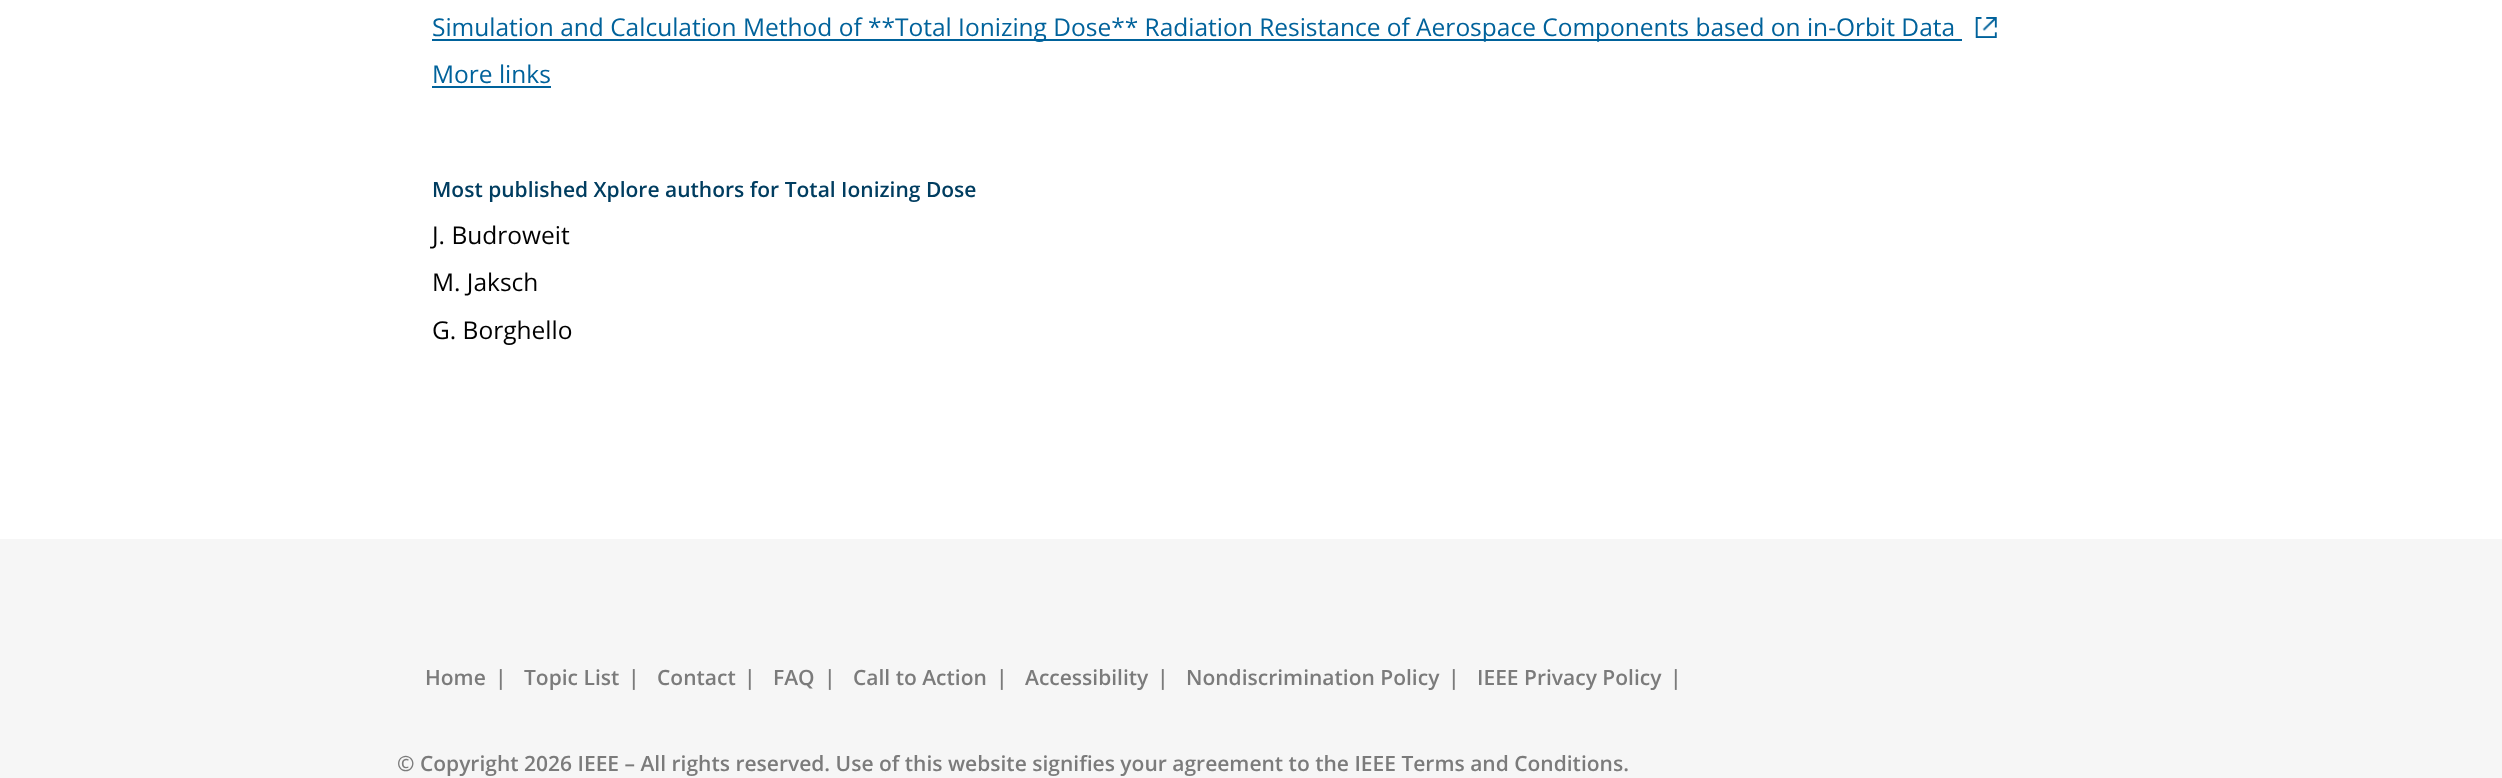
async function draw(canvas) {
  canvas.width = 2502;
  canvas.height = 778;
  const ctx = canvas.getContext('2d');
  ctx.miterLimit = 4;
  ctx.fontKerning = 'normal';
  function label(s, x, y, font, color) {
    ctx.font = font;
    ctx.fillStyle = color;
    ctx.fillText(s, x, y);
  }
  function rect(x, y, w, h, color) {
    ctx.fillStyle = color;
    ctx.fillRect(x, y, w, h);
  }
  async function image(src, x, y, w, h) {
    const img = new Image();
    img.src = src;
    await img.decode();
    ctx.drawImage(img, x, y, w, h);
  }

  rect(0, 0, 2502, 778, '#fff');
  rect(432, 39, 1530, 2, '#00629b');
  label('Simulation and Calculation Method of **Total Ionizing Dose** Radiation Resistance of Aerospace Components based on in-Orbit Data', 432, 36, '24.5px Open Sans', '#00629b');
  await image('assets/img1.png', 1975, 17, 22, 21);
  label('More links', 432, 83, '24.5px Open Sans', '#00629b');
  rect(432, 86, 119, 2, '#00629b');
  label('Most published Xplore authors for Total Ionizing Dose', 432, 197, '600 21px Open Sans', '#003d60');
  label('J. Budroweit', 432, 244, '24.5px Open Sans', '#000');
  label('M. Jaksch', 432, 291, '24.5px Open Sans', '#000');
  label('G. Borghello', 432, 339, '24.5px Open Sans', '#000');
  rect(0, 539, 2502, 239, '#f6f6f6');
  label('Home', 425, 685, '600 21px Open Sans', '#7b7b7b');
  label('|', 495, 685, '600 21px Open Sans', '#7b7b7b');
  label('Topic List', 524, 685, '600 21px Open Sans', '#7b7b7b');
  label('|', 628, 685, '600 21px Open Sans', '#7b7b7b');
  label('Contact', 657, 685, '600 21px Open Sans', '#7b7b7b');
  label('|', 744, 685, '600 21px Open Sans', '#7b7b7b');
  label('FAQ', 773, 685, '600 21px Open Sans', '#7b7b7b');
  label('|', 824, 685, '600 21px Open Sans', '#7b7b7b');
  label('Call to Action', 853, 685, '600 21px Open Sans', '#7b7b7b');
  label('|', 996, 685, '600 21px Open Sans', '#7b7b7b');
  label('Accessibility', 1025, 685, '600 21px Open Sans', '#7b7b7b');
  label('|', 1157, 685, '600 21px Open Sans', '#7b7b7b');
  label('Nondiscrimination Policy', 1186, 685, '600 21px Open Sans', '#7b7b7b');
  label('|', 1448, 685, '600 21px Open Sans', '#7b7b7b');
  label('IEEE Privacy Policy', 1477, 685, '600 21px Open Sans', '#7b7b7b');
  label('|', 1670, 685, '600 21px Open Sans', '#7b7b7b');
  label('© Copyright 2026 IEEE – All rights reserved. Use of this website signifies your agreement to the IEEE Terms and Conditions.', 397, 771, '600 21px Open Sans', '#7b7b7b');
}

draw(document.querySelector('canvas'));
